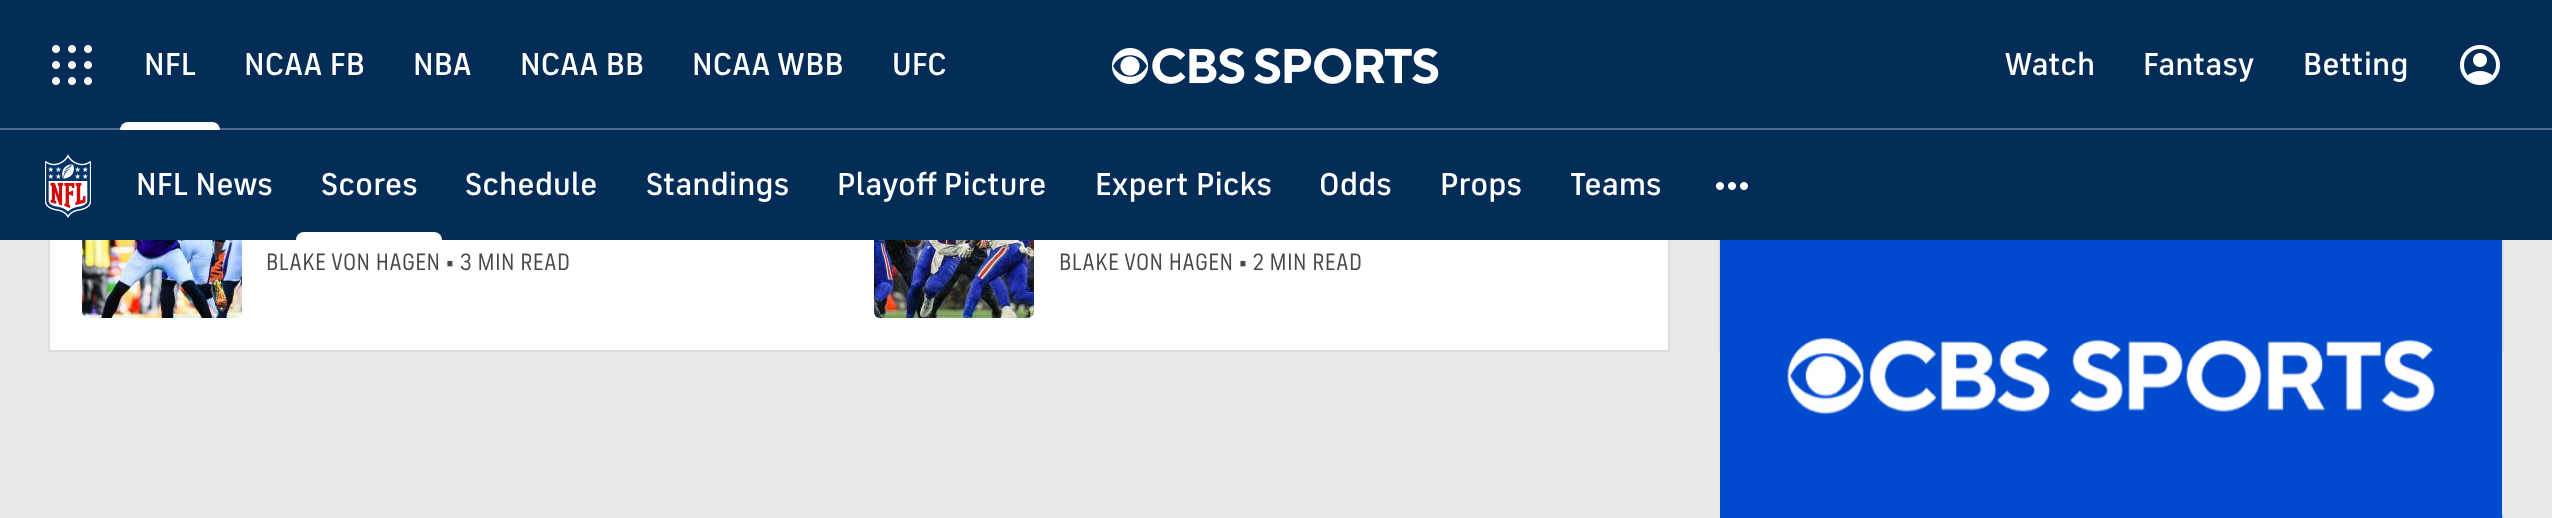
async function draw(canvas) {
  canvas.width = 2552;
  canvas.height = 518;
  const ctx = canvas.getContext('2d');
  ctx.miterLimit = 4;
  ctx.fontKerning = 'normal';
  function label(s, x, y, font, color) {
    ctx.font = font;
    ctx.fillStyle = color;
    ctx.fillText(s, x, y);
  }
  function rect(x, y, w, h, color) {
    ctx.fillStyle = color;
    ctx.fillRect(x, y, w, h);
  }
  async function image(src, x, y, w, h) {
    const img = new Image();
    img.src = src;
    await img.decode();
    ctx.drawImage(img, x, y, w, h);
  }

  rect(0, 0, 2552, 518, '#e8e8e8');
  rect(50, 240, 1618, 110, '#fff');
  ctx.strokeStyle = '#dcdcdc';
  ctx.lineWidth = 2;
  ctx.strokeRect(49, -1, 1620, 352);
  rect(0, 0, 2552, 128, '#032c57');
  rect(0, 128, 2552, 2, '#4f6b89');
  await image('assets/img1.png', 52, 45, 40, 40);
  label('NFL', 144, 75, '500 32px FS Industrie', '#fff');
  ctx.beginPath();
  ctx.roundRect(120, 122, 100, 8, [8, 8, 0, 0]);
  ctx.fill();
  label('NCAA FB', 244, 75, '500 32px FS Industrie', '#fff');
  label('NBA', 413, 75, '500 32px FS Industrie', '#fff');
  label('NCAA BB', 520, 75, '500 32px FS Industrie', '#fff');
  label('NCAA WBB', 692, 75, '500 32px FS Industrie', '#fff');
  label('UFC', 892, 75, '500 32px FS Industrie', '#fff');
  await image('assets/img2.png', 1112, 48, 36, 36);
  await image('assets/img3.png', 1152, 48, 287, 36);
  label('Watch', 2004, 75, '500 32px FS Industrie', '#fff');
  label('Fantasy', 2143, 75, '500 32px FS Industrie', '#fff');
  label('Betting', 2303, 75, '500 32px FS Industrie', '#fff');
  await image('assets/img4.png', 2460, 45, 40, 40);
  ctx.strokeRect(1719, 155, 784, 196);
  rect(0, 130, 2552, 110, '#032c57');
  await image('assets/img5.png', 45, 154, 46, 64);
  label('NFL News', 136, 195, '500 32px FS Industrie', '#fff');
  label('Scores', 321, 195, '500 32px FS Industrie', '#fff');
  ctx.beginPath();
  ctx.roundRect(296, 232, 146, 8, [8, 8, 0, 0]);
  ctx.fill();
  label('Schedule', 465, 195, '500 32px FS Industrie', '#fff');
  label('Standings', 646, 195, '500 32px FS Industrie', '#fff');
  label('Playoff Picture', 837, 195, '500 32px FS Industrie', '#fff');
  label('Expert Picks', 1095, 195, '500 32px FS Industrie', '#fff');
  label('Odds', 1319, 195, '500 32px FS Industrie', '#fff');
  label('Props', 1440, 195, '500 32px FS Industrie', '#fff');
  label('Teams', 1570, 195, '500 32px FS Industrie', '#fff');
  await image('assets/img6.png', 1716, 182, 32, 8);
  await image('assets/img7.png', 82, 240, 160, 78);
  ctx.letterSpacing = '0.4px';
  label('BLAKE VON HAGEN • 3 MIN READ', 266, 270, '24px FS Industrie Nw', '#484848');
  await image('assets/img8.png', 874, 240, 160, 78);
  label('BLAKE VON HAGEN • 2 MIN READ', 1059, 270, '24px FS Industrie Nw', '#484848');
  await image('assets/img9.png', 1720, 240, 782, 278);
  await image('assets/img10.png', 2502, 514, 2, 4);
}

draw(document.querySelector('canvas'));
